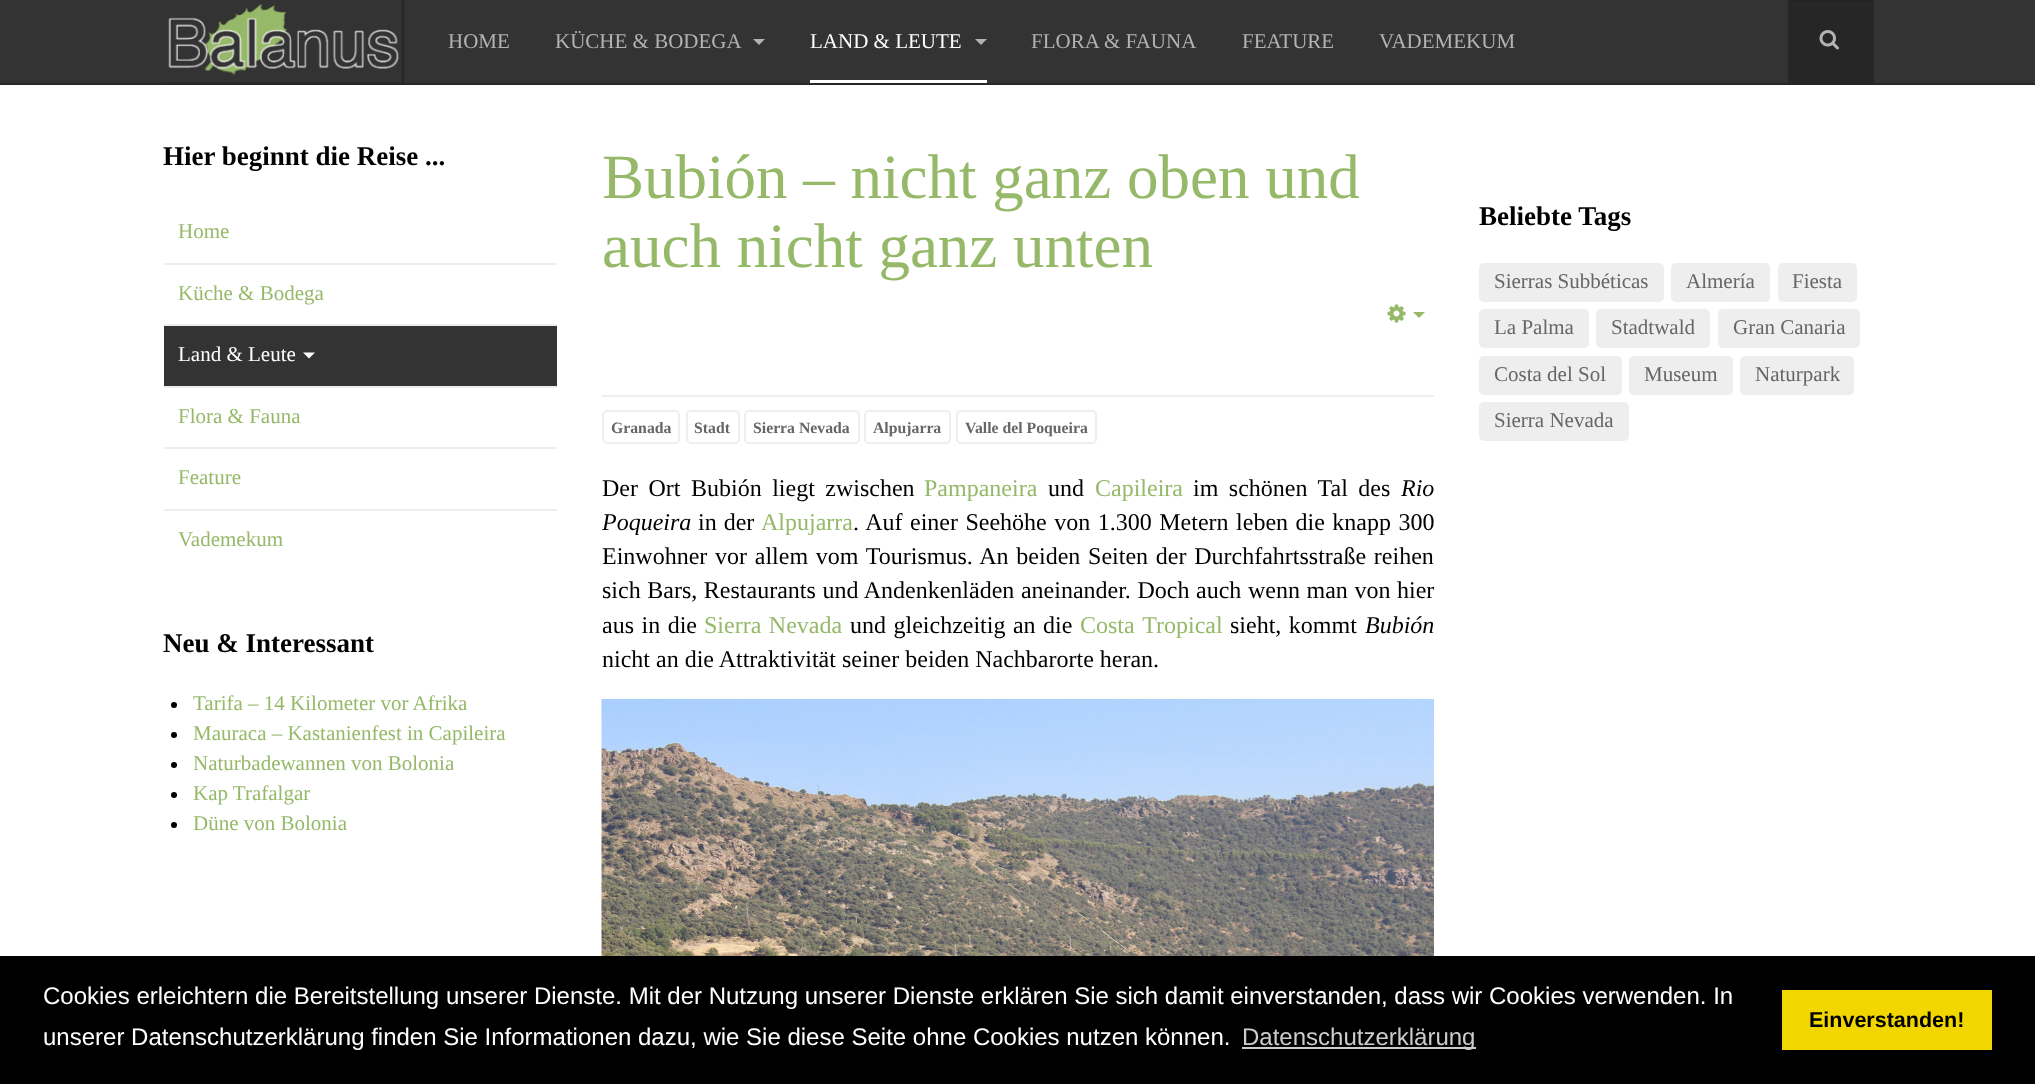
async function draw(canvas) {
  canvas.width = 2035;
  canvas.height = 1084;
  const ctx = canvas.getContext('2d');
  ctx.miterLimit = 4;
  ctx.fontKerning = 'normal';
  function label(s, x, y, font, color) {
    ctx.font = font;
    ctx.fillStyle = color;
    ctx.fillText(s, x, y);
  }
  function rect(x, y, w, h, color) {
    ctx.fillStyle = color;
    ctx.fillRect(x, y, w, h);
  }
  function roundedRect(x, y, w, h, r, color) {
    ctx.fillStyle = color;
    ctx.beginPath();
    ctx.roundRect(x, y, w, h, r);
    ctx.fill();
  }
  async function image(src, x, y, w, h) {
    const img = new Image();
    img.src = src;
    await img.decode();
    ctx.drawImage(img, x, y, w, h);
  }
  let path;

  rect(0, 0, 2035, 1084, '#fff');
  rect(0, 0, 2035, 83, '#333');
  rect(0, 83, 2035, 2, '#262626');
  rect(164, 0, 240, 83, '#262626');
  await image('assets/img1.png', 164, 0, 238, 83);
  rect(1788, 0, 86, 83, '#262626');
  rect(1790, 0, 82, 2, '#232323');
  await image('assets/img2.png', 1819, 30, 20, 20);
  label('HOME', 448, 48, '21px Liberation Serif', '#b3b3b3');
  label('KÜCHE & BODEGA', 555, 48, '21px Liberation Serif', '#b3b3b3');
  path = new Path2D('M753 39H765L759 45Z');
  ctx.fill(path);
  rect(810, 80, 177, 3, '#fff');
  label('LAND & LEUTE', 810, 48, '21px Liberation Serif', '#fff');
  ctx.fillStyle = '#b3b3b3';
  path = new Path2D('M975 39H987L981 45Z');
  ctx.fill(path);
  label('FLORA & FAUNA', 1031, 48, '21px Liberation Serif', '#b3b3b3');
  label('FEATURE', 1242, 48, '21px Liberation Serif', '#b3b3b3');
  label('VADEMEKUM', 1379, 48, '21px Liberation Serif', '#b3b3b3');
  label('Hier beginnt die Reise ...', 163, 165, 'bold 27px Liberation Serif', '#000');
  label('Home', 178, 238, '21px Liberation Serif', '#95b969');
  rect(164, 263, 393, 2, '#eee');
  label('Küche & Bodega', 178, 300, '21px Liberation Serif', '#95b969');
  rect(164, 324, 393, 2, '#eee');
  rect(164, 326, 393, 60, '#333');
  label('Land & Leute', 178, 361, '21px Liberation Serif', '#fff');
  path = new Path2D('M303 352.5H315L309 358.5Z');
  ctx.fill(path);
  rect(164, 386, 393, 2, '#eee');
  label('Flora & Fauna', 178, 423, '21px Liberation Serif', '#95b969');
  rect(164, 447, 393, 2, '#eee');
  label('Feature', 178, 484, '21px Liberation Serif', '#95b969');
  rect(164, 509, 393, 2, '#eee');
  label('Vademekum', 178, 546, '21px Liberation Serif', '#95b969');
  label('Neu & Interessant', 163, 652, 'bold 27px Liberation Serif', '#000');
  ctx.beginPath();
  ctx.arc(174, 705, 3, 0, 2 * Math.PI);
  ctx.fill();
  label('Tarifa – 14 Kilometer vor Afrika', 193, 710, '21px Liberation Serif', '#95b969');
  ctx.fillStyle = '#000';
  ctx.beginPath();
  ctx.arc(174, 735, 3, 0, 2 * Math.PI);
  ctx.fill();
  label('Mauraca – Kastanienfest in Capileira', 193, 740, '21px Liberation Serif', '#95b969');
  ctx.fillStyle = '#000';
  ctx.beginPath();
  ctx.arc(174, 765, 3, 0, 2 * Math.PI);
  ctx.fill();
  label('Naturbadewannen von Bolonia', 193, 770, '21px Liberation Serif', '#95b969');
  ctx.fillStyle = '#000';
  ctx.beginPath();
  ctx.arc(174, 795, 3, 0, 2 * Math.PI);
  ctx.fill();
  label('Kap Trafalgar', 193, 800, '21px Liberation Serif', '#95b969');
  ctx.fillStyle = '#000';
  ctx.beginPath();
  ctx.arc(174, 825, 3, 0, 2 * Math.PI);
  ctx.fill();
  label('Düne von Bolonia', 193, 830, '21px Liberation Serif', '#95b969');
  label('Bubión – nicht ganz oben und', 602, 198, '63px Liberation Serif', '#95b969');
  label('auch nicht ganz unten', 602, 267, '63px Liberation Serif', '#95b969');
  await image('assets/img3.png', 1387, 304, 19, 19);
  path = new Path2D('M1413 312H1425L1419 318Z');
  ctx.fill(path);
  rect(602, 395, 832, 2, '#eee');
  ctx.beginPath();
  ctx.roundRect(603, 411, 76, 32, 4);
  ctx.strokeStyle = '#eee';
  ctx.lineWidth = 2;
  ctx.stroke();
  label('Granada', 611, 433, 'bold 15.75px Liberation Serif', '#666');
  ctx.beginPath();
  ctx.roundRect(687, 411, 52, 32, 4);
  ctx.stroke();
  label('Stadt', 694, 433, 'bold 15.75px Liberation Serif', '#666');
  ctx.beginPath();
  ctx.roundRect(745, 411, 114, 32, 4);
  ctx.stroke();
  label('Sierra Nevada', 753, 433, 'bold 15.75px Liberation Serif', '#666');
  ctx.beginPath();
  ctx.roundRect(865, 411, 85, 32, 4);
  ctx.stroke();
  label('Alpujarra', 873, 433, 'bold 15.75px Liberation Serif', '#666');
  ctx.beginPath();
  ctx.roundRect(957, 411, 139, 32, 4);
  ctx.stroke();
  label('Valle del Poqueira', 965, 433, 'bold 15.75px Liberation Serif', '#666');
  ctx.wordSpacing = '4.5px';
  label('Der Ort Bubión liegt zwischen', 602, 496, '24px Liberation Serif', '#000');
  ctx.wordSpacing = '0px';
  label('Pampaneira', 924, 496, '24px Liberation Serif', '#95b969');
  label('und', 1048, 496, '24px Liberation Serif', '#000');
  label('Capileira', 1095, 496, '24px Liberation Serif', '#95b969');
  ctx.wordSpacing = '4.5px';
  label('im schönen Tal des', 1193, 496, '24px Liberation Serif', '#000');
  ctx.wordSpacing = '0px';
  label('Rio', 1401, 496, 'italic 24px Liberation Serif', '#000');
  label('Poqueira', 602, 530, 'italic 24px Liberation Serif', '#000');
  ctx.wordSpacing = '1px';
  label('in der', 698, 530, '24px Liberation Serif', '#000');
  ctx.wordSpacing = '0px';
  label('Alpujarra', 761, 530, '24px Liberation Serif', '#95b969');
  ctx.wordSpacing = '1.5px';
  label('. Auf einer Seehöhe von 1.300 Metern leben die knapp 300', 853, 530, '24px Liberation Serif', '#000');
  ctx.wordSpacing = '1.75px';
  label('Einwohner vor allem vom Tourismus. An beiden Seiten der Durchfahrtsstraße reihen', 602, 564, '24px Liberation Serif', '#000');
  ctx.wordSpacing = '0.6px';
  label('sich Bars, Restaurants und Andenkenläden aneinander. Doch auch wenn man von hier', 602, 598, '24px Liberation Serif', '#000');
  ctx.wordSpacing = '1.5px';
  label('aus in die', 602, 633, '24px Liberation Serif', '#000');
  label('Sierra Nevada', 704, 633, '24px Liberation Serif', '#95b969');
  label('und gleichzeitig an die', 850, 633, '24px Liberation Serif', '#000');
  ctx.wordSpacing = '2px';
  label('Costa Tropical', 1080, 633, '24px Liberation Serif', '#95b969');
  ctx.wordSpacing = '1.5px';
  label('sieht, kommt', 1230, 633, '24px Liberation Serif', '#000');
  ctx.wordSpacing = '0px';
  label('Bubión', 1365, 633, 'italic 24px Liberation Serif', '#000');
  label('nicht an die Attraktivität seiner beiden Nachbarorte heran.', 602, 667, '24px Liberation Serif', '#000');
  await image('assets/img4.png', 601, 699, 833, 257);
  label('Beliebte Tags', 1479, 225, 'bold 27px Liberation Serif', '#000');
  roundedRect(1479, 263, 185, 39, 5, '#eee');
  label('Sierras Subbéticas', 1494, 288, '21px Liberation Serif', '#666');
  roundedRect(1671, 263, 99, 39, 5, '#eee');
  label('Almería', 1686, 288, '21px Liberation Serif', '#666');
  roundedRect(1778, 263, 79, 39, 5, '#eee');
  label('Fiesta', 1792, 288, '21px Liberation Serif', '#666');
  roundedRect(1479, 309, 110, 39, 5, '#eee');
  label('La Palma', 1494, 334, '21px Liberation Serif', '#666');
  roundedRect(1596, 309, 114, 39, 5, '#eee');
  label('Stadtwald', 1611, 334, '21px Liberation Serif', '#666');
  roundedRect(1718, 309, 142, 39, 5, '#eee');
  label('Gran Canaria', 1733, 334, '21px Liberation Serif', '#666');
  roundedRect(1479, 356, 143, 39, 5, '#eee');
  label('Costa del Sol', 1494, 381, '21px Liberation Serif', '#666');
  roundedRect(1629, 356, 104, 39, 5, '#eee');
  label('Museum', 1644, 381, '21px Liberation Serif', '#666');
  roundedRect(1740, 356, 114, 39, 5, '#eee');
  label('Naturpark', 1755, 381, '21px Liberation Serif', '#666');
  roundedRect(1479, 402, 150, 39, 5, '#eee');
  label('Sierra Nevada', 1494, 427, '21px Liberation Serif', '#666');
  rect(0, 956, 2035, 128, '#000');
  label('Cookies erleichtern die Bereitstellung unserer Dienste. Mit der Nutzung unserer Dienste erklären Sie sich damit einverstanden, dass wir Cookies verwenden. In', 43, 1004, '24px Liberation Sans', '#fff');
  label('unserer Datenschutzerklärung finden Sie Informationen dazu, wie Sie diese Seite ohne Cookies nutzen können.', 43, 1045, '24px Liberation Sans', '#fff');
  rect(1242, 1047, 234, 2, '#ccc');
  label('Datenschutzerklärung', 1242, 1045, '24px Liberation Sans', '#ccc');
  rect(1782, 990, 210, 60, '#f1d600');
  label('Einverstanden!', 1809, 1027, 'bold 21.5px Liberation Sans', '#000');
}

draw(document.querySelector('canvas'));
